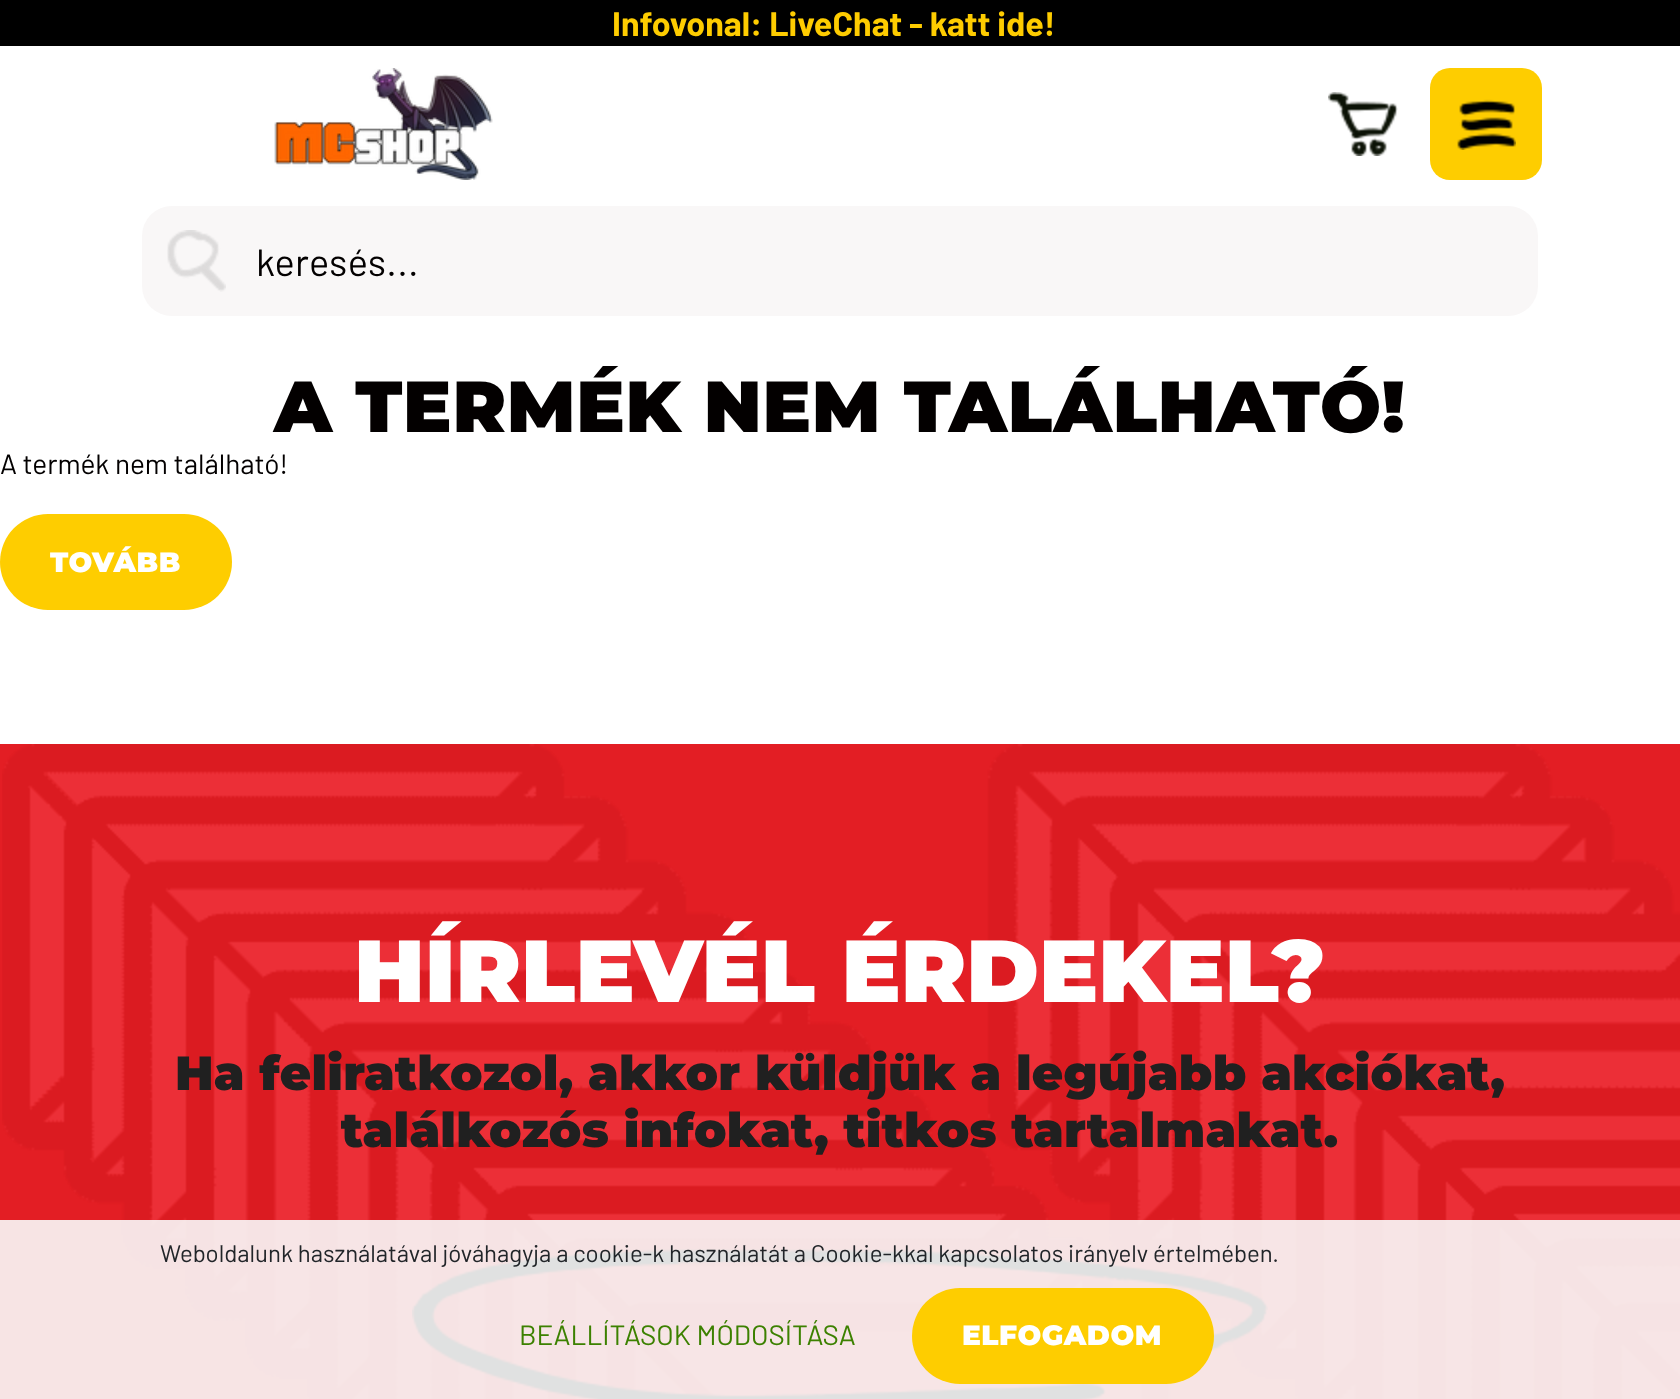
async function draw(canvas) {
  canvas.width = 1680;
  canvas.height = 1399;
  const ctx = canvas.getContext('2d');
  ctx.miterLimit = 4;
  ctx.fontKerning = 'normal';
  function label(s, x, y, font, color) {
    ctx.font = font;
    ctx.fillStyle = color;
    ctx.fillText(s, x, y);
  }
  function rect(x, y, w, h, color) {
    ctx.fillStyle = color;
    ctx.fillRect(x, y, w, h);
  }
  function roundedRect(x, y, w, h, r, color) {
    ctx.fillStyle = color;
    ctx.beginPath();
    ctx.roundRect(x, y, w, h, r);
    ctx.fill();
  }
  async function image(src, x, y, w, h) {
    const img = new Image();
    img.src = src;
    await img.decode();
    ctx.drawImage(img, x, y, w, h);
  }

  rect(0, 0, 1680, 1399, '#fff');
  rect(0, 0, 1680, 46, '#000');
  label('Infovonal: LiveChat - katt ide!', 612, 36, 'bold 34px Barlow', '#fecc00');
  await image('assets/img1.png', 274, 68, 219, 112);
  await image('assets/img2.png', 1328, 92, 70, 64);
  roundedRect(1430, 68, 112, 112, 20, '#fecd00');
  await image('assets/img3.png', 1457, 99, 59, 51);
  roundedRect(142, 206, 1396, 110, 30, '#f9f7f7');
  await image('assets/img4.png', 167, 230, 59, 62);
  ctx.letterSpacing = '0.25px';
  label('keresés...', 256, 276, '38px Barlow', '#030000');
  ctx.letterSpacing = '0.8px';
  label('A TERMÉK NEM TALÁLHATÓ!', 274, 432, '900 72px Montserrat', '#030000');
  ctx.letterSpacing = '0px';
  label('A termék nem található!', 0, 474, '28px Barlow', '#030000');
  roundedRect(0, 514, 232, 96, 48, '#fecd00');
  ctx.letterSpacing = '0.5px';
  label('TOVÁBB', 50, 572, '900 28px Montserrat', '#fff');
  rect(0, 744, 1680, 655, '#e31e24');
  await image('assets/img5.png', 2, 744, 1678, 655);
  ctx.letterSpacing = '0px';
  label('HÍRLEVÉL ÉRDEKEL?', 354, 1002, '900 88px Montserrat', '#fff');
  ctx.letterSpacing = '0.25px';
  label('Ha feliratkozol, akkor küldjük a legújabb akciókat,', 175, 1090, '900 48px Montserrat', '#202020');
  label('találkozós infokat, titkos tartalmakat.', 341, 1147, '900 48px Montserrat', '#202020');
  await image('assets/img6.png', 412, 1249, 856, 150);
  rect(0, 1220, 1680, 179, '#f8f9fae6');
  ctx.letterSpacing = '0px';
  label('Weboldalunk használatával jóváhagyja a cookie-k használatát a Cookie-kkal kapcsolatos irányelv értelmében.', 160, 1262, '24px Barlow', '#212529');
  label('BEÁLLÍTÁSOK MÓDOSÍTÁSA', 519, 1345, '28px Barlow', '#3c8100');
  roundedRect(912, 1288, 302, 96, 48, '#fecd00');
  ctx.letterSpacing = '0.5px';
  label('ELFOGADOM', 962, 1345, '900 28px Montserrat', '#fff');
}

draw(document.querySelector('canvas'));
